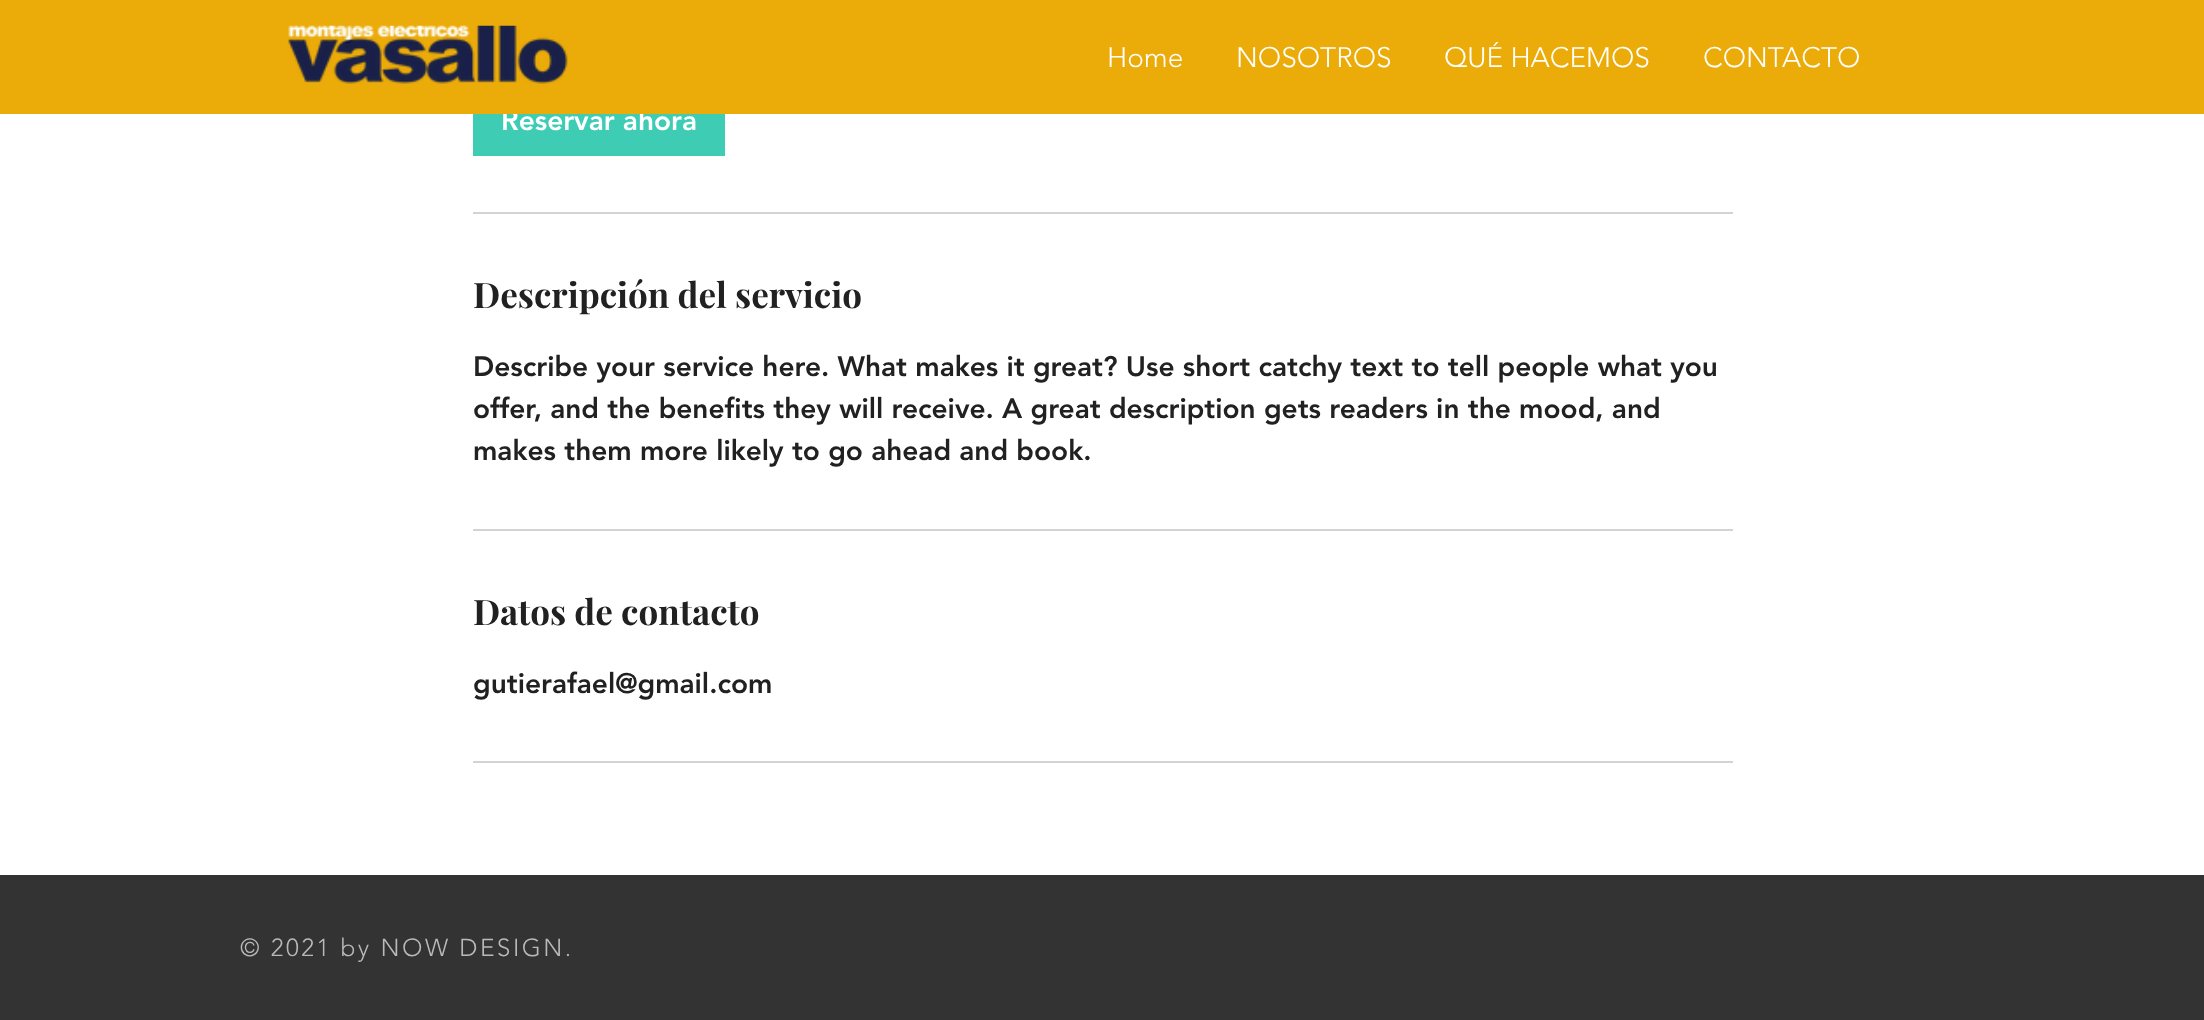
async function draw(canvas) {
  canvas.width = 2204;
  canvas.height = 1020;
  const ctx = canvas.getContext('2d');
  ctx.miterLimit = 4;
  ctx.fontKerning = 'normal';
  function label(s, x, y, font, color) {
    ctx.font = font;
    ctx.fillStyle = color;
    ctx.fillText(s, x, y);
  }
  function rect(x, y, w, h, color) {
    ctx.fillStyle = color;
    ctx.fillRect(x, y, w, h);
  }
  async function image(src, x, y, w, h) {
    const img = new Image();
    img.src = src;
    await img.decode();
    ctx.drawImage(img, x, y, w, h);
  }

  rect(0, 0, 2204, 1020, '#fff');
  rect(473, 114, 252, 42, '#3eccb5');
  label('Reservar ahora', 501, 130, '900 28px "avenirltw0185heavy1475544"', '#fff');
  rect(0, 0, 2204, 114, '#ebab09');
  await image('assets/img1.png', 287, 25, 281, 59);
  label('Home', 1107, 67, '300 28px "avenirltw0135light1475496"', '#fff');
  label('NOSOTROS', 1236, 67, '300 28px "avenirltw0135light1475496"', '#fff');
  label('QUÉ HACEMOS', 1444, 67, '300 28px "avenirltw0135light1475496"', '#fff');
  label('CONTACTO', 1703, 67, '300 28px "avenirltw0135light1475496"', '#fff');
  rect(473, 212, 1260, 2, '#d3d3d3');
  label('Descripción del servicio', 473, 308, 'bold 35px Playfair Display', '#212121');
  label('Describe your service here. What makes it great? Use short catchy text to tell people what you', 473, 376, '900 28px "avenirltw0185heavy1475544"', '#212121');
  label('offer, and the benefits they will receive. A great description gets readers in the mood, and', 473, 418, '900 28px "avenirltw0185heavy1475544"', '#212121');
  label('makes them more likely to go ahead and book.', 473, 460, '900 28px "avenirltw0185heavy1475544"', '#212121');
  rect(473, 529, 1260, 2, '#d3d3d3');
  label('Datos de contacto', 473, 625, 'bold 35px Playfair Display', '#212121');
  label('gutierafael@gmail.com', 473, 693, '900 28px "avenirltw0185heavy1475544"', '#212121');
  rect(473, 761, 1260, 2, '#d3d3d3');
  rect(0, 875, 2204, 145, '#333');
  ctx.letterSpacing = '2.45px';
  label('© 2021 by NOW DESIGN.', 240, 956, '300 24.5px "avenirltw0135light1475496"', '#bab8b8');
}

draw(document.querySelector('canvas'));
